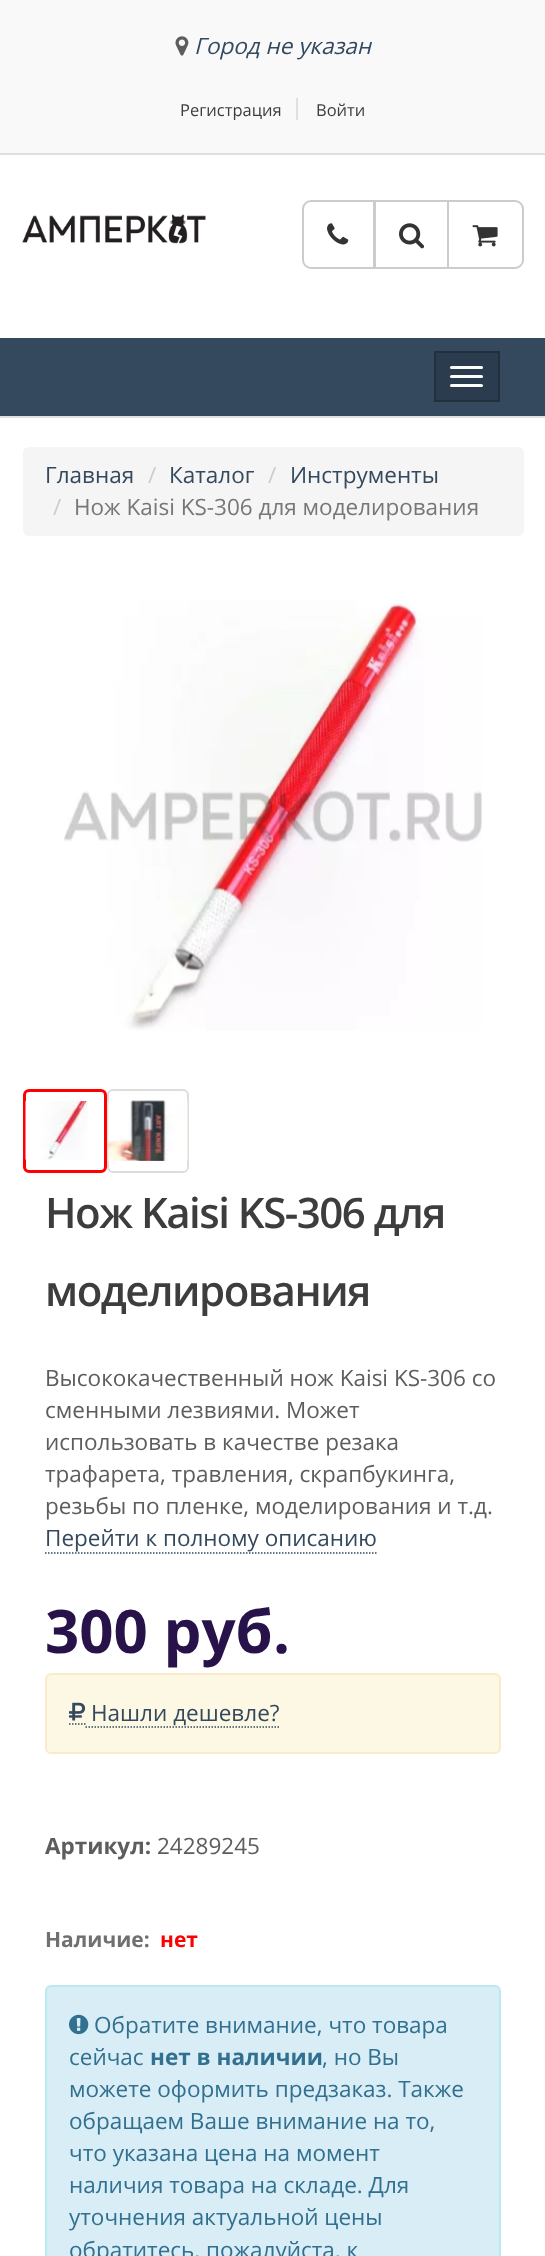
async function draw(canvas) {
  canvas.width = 545;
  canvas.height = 2256;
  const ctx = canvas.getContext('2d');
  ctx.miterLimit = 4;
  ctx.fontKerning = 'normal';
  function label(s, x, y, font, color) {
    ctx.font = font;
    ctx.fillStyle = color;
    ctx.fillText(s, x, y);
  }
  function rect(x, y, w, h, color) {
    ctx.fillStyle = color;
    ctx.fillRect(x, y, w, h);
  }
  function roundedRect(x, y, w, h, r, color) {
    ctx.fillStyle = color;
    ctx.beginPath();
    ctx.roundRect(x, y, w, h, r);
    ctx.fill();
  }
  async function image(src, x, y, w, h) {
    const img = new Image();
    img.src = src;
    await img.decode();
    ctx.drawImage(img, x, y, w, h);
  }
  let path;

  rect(0, 0, 545, 2256, '#fff');
  rect(0, 0, 545, 153, '#f9f9f9');
  rect(0, 153, 545, 2, '#e0e0e0');
  await image('assets/img1.png', 175, 36, 14, 20);
  label('Город не указан', 194, 54, 'italic 22.5px Open Sans', '#34495e');
  rect(296, 98, 2, 22, '#e0e0e0');
  label('Регистрация', 180, 116, '16.5px Open Sans', '#3d3d3d');
  label('Войти', 316, 116, '16.5px Open Sans', '#3d3d3d');
  rect(0, 416, 545, 2, '#e0e0e0');
  await image('assets/img2.png', 22, 214, 184, 30);
  ctx.beginPath();
  ctx.roundRect(303, 201, 71, 67, [8, 0, 0, 8]);
  ctx.strokeStyle = '#ccc';
  ctx.lineWidth = 2;
  ctx.stroke();
  await image('assets/img3.png', 327, 223, 22, 22);
  ctx.strokeRect(375, 201, 73, 67);
  await image('assets/img4.png', 399, 223, 26, 26);
  ctx.fillStyle = '#fff';
  ctx.beginPath();
  ctx.roundRect(448, 201, 75, 67, [0, 8, 8, 0]);
  ctx.fill();
  ctx.stroke();
  await image('assets/img5.png', 472, 225, 26, 22);
  rect(0, 338, 545, 78, '#34495e');
  ctx.fillStyle = '#2b3c4e';
  ctx.beginPath();
  ctx.rect(435, 352, 64, 49);
  ctx.fill();
  ctx.strokeStyle = '#222f3d';
  ctx.stroke();
  roundedRect(450, 366, 33, 3, 1.5, '#fff');
  roundedRect(450, 375, 33, 3, 1.5, '#fff');
  roundedRect(450, 384, 33, 3, 1.5, '#fff');
  roundedRect(23, 447, 501, 89, 6, '#f5f5f5');
  label('Главная', 45, 483, '22.5px Open Sans', '#34495e');
  label('/', 148, 483, '22.5px Open Sans', '#ccc');
  label('Каталог', 169, 483, '22.5px Open Sans', '#34495e');
  label('/', 268, 483, '22.5px Open Sans', '#ccc');
  label('Инструменты', 290, 483, '22.5px Open Sans', '#34495e');
  label('/', 53, 515, '22.5px Open Sans', '#ccc');
  label('Нож Kaisi KS-306 для моделирования', 74, 515, '22.5px Open Sans', '#777');
  await image('assets/img6.png', 64, 599, 418, 432);
  ctx.beginPath();
  ctx.roundRect(24.5, 1090.5, 81, 81, 4.5);
  ctx.strokeStyle = '#f00';
  ctx.lineWidth = 3;
  ctx.stroke();
  await image('assets/img7.png', 25, 1101, 63, 59);
  ctx.beginPath();
  ctx.roundRect(108, 1090, 80, 82, 5);
  ctx.strokeStyle = '#ddd';
  ctx.lineWidth = 2;
  ctx.stroke();
  await image('assets/img8.png', 107, 1100, 81, 61);
  ctx.letterSpacing = '-1.5px';
  label('Нож Kaisi KS-306 для', 45, 1228, '600 42px Open Sans', '#3d3d3d');
  label('моделирования', 45, 1306, '600 42px Open Sans', '#3d3d3d');
  ctx.letterSpacing = '0px';
  label('Высококачественный нож Kaisi KS-306 со', 45, 1386, '22.5px Open Sans', '#5d5d5d');
  label('сменными лезвиями. Может', 45, 1418, '22.5px Open Sans', '#5d5d5d');
  label('использовать в качестве резака', 45, 1450, '22.5px Open Sans', '#5d5d5d');
  label('трафарета, травления, скрапбукинга,', 45, 1482, '22.5px Open Sans', '#5d5d5d');
  label('резьбы по пленке, моделирования и т.д.', 45, 1514, '22.5px Open Sans', '#5d5d5d');
  label('Перейти к полному описанию', 45, 1546, '22.5px Open Sans', '#34495e');
  path = new Path2D('M45 1553H376.5');
  ctx.strokeStyle = '#34495e';
  ctx.lineWidth = 1.5;
  ctx.setLineDash([1.5, 1.5]);
  ctx.stroke(path);
  label('300 руб.', 45, 1653, 'bold 60px Open Sans', '#28124a');
  ctx.fillStyle = '#fcf8e3';
  ctx.beginPath();
  ctx.roundRect(46, 1674, 454, 79, 5);
  ctx.fill();
  ctx.strokeStyle = '#faebcc';
  ctx.lineWidth = 2;
  ctx.setLineDash([]);
  ctx.stroke();
  path = new Path2D('M69 1724H85.5');
  ctx.strokeStyle = '#34495e';
  ctx.lineWidth = 1.5;
  ctx.setLineDash([1.5, 1.5]);
  ctx.stroke(path);
  path = new Path2D('M85.5 1727H279');
  ctx.stroke(path);
  await image('assets/img9.png', 69, 1702, 17, 19);
  label('Нашли дешевле?', 91, 1721, '22.5px Open Sans', '#34495e');
  label('Артикул:', 45, 1854, 'bold 22.5px Open Sans', '#5d5d5d');
  label('24289245', 157, 1854, '22.5px Open Sans', '#5d5d5d');
  label('Наличие:', 45, 1947, 'bold 21px Open Sans', '#707070');
  label('нет', 160, 1947, 'bold 21px Open Sans', '#f00');
  ctx.fillStyle = '#d9edf7';
  ctx.beginPath();
  ctx.roundRect(46, 1986, 454, 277, 5);
  ctx.fill();
  ctx.strokeStyle = '#bce8f1';
  ctx.lineWidth = 2;
  ctx.setLineDash([]);
  ctx.stroke();
  await image('assets/img10.png', 69, 2014, 20, 21);
  label('Обратите внимание, что товара', 94, 2033, '22.5px Open Sans', '#31708f');
  label('сейчас', 69, 2065, '22.5px Open Sans', '#31708f');
  label('нет в наличии', 150, 2065, 'bold 22.5px Open Sans', '#31708f');
  label(', но Вы', 322, 2065, '22.5px Open Sans', '#31708f');
  label('можете оформить предзаказ. Также', 69, 2097, '22.5px Open Sans', '#31708f');
  label('обращаем Ваше внимание на то,', 69, 2129, '22.5px Open Sans', '#31708f');
  label('что указана цена на момент', 69, 2161, '22.5px Open Sans', '#31708f');
  label('наличия товара на складе. Для', 69, 2193, '22.5px Open Sans', '#31708f');
  label('уточнения актуальной цены', 69, 2225, '22.5px Open Sans', '#31708f');
  label('обратитесь, пожалуйста, к', 69, 2258, '22.5px Open Sans', '#31708f');
}

draw(document.querySelector('canvas'));
